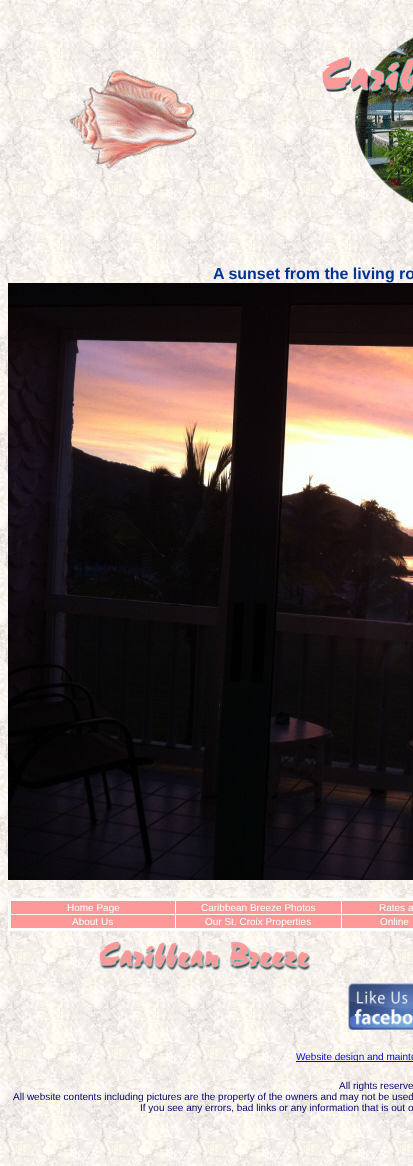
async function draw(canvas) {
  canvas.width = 413;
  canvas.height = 1166;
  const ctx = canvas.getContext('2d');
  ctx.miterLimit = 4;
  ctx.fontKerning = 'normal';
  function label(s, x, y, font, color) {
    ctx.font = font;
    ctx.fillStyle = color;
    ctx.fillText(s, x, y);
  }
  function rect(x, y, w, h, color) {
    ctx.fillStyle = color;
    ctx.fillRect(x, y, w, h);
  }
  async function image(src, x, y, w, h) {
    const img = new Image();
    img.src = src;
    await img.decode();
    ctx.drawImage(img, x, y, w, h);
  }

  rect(0, 0, 413, 1166, '#fff');
  await image('assets/img1.png', 0, 0, 413, 1166);
  await image('assets/img2.png', 68, 70, 130, 100);
  await image('assets/img3.png', 322, 37, 91, 167);
  label('A sunset from the living ro', 213, 279, 'bold 16px Liberation Sans', '#039');
  await image('assets/img4.png', 8, 283, 405, 597);
  rect(341, 914, 72, 1, '#fff');
  rect(341, 914, 1, 16, '#fff');
  rect(175, 914, 167, 1, '#fff');
  rect(175, 914, 1, 16, '#fff');
  rect(9, 914, 167, 1, '#fff');
  rect(175, 899, 1, 16, '#fff');
  rect(341, 899, 1, 16, '#fff');
  rect(8, 898, 405, 3, '#fff');
  rect(8, 928, 405, 3, '#fff');
  rect(8, 898, 3, 33, '#fff');
  rect(11, 901, 164, 13, '#f99');
  label('Home Page', 67, 911, '10px Liberation Sans', '#fff');
  rect(176, 901, 165, 13, '#f99');
  label('Caribbean Breeze Photos', 201, 911, '10px Liberation Sans', '#fff');
  rect(342, 901, 71, 13, '#f99');
  label('Rates a', 379, 911, '10px Liberation Sans', '#fff');
  rect(11, 915, 164, 13, '#f99');
  label('About Us', 72, 925, '10px Liberation Sans', '#fff');
  rect(176, 915, 165, 13, '#f99');
  label('Our St. Croix Properties', 205, 925, '10px Liberation Sans', '#fff');
  rect(342, 915, 71, 13, '#f99');
  label('Online', 380, 925, '10px Liberation Sans', '#fff');
  await image('assets/img5.png', 98, 941, 213, 31);
  await image('assets/img6.png', 348, 983, 65, 47);
  rect(296, 1061, 117, 1, '#00e');
  label('Website design and mainte', 296, 1060, '10px Liberation Sans', '#00e');
  label('All rights reserve', 339, 1089, '10px Liberation Sans', '#006');
  label('All website contents including pictures are the property of the owners and may not be used', 13, 1100, '10px Liberation Sans', '#006');
  label('If you see any errors, bad links or any information that is out o', 140, 1111, '10px Liberation Sans', '#006');
}

draw(document.querySelector('canvas'));
